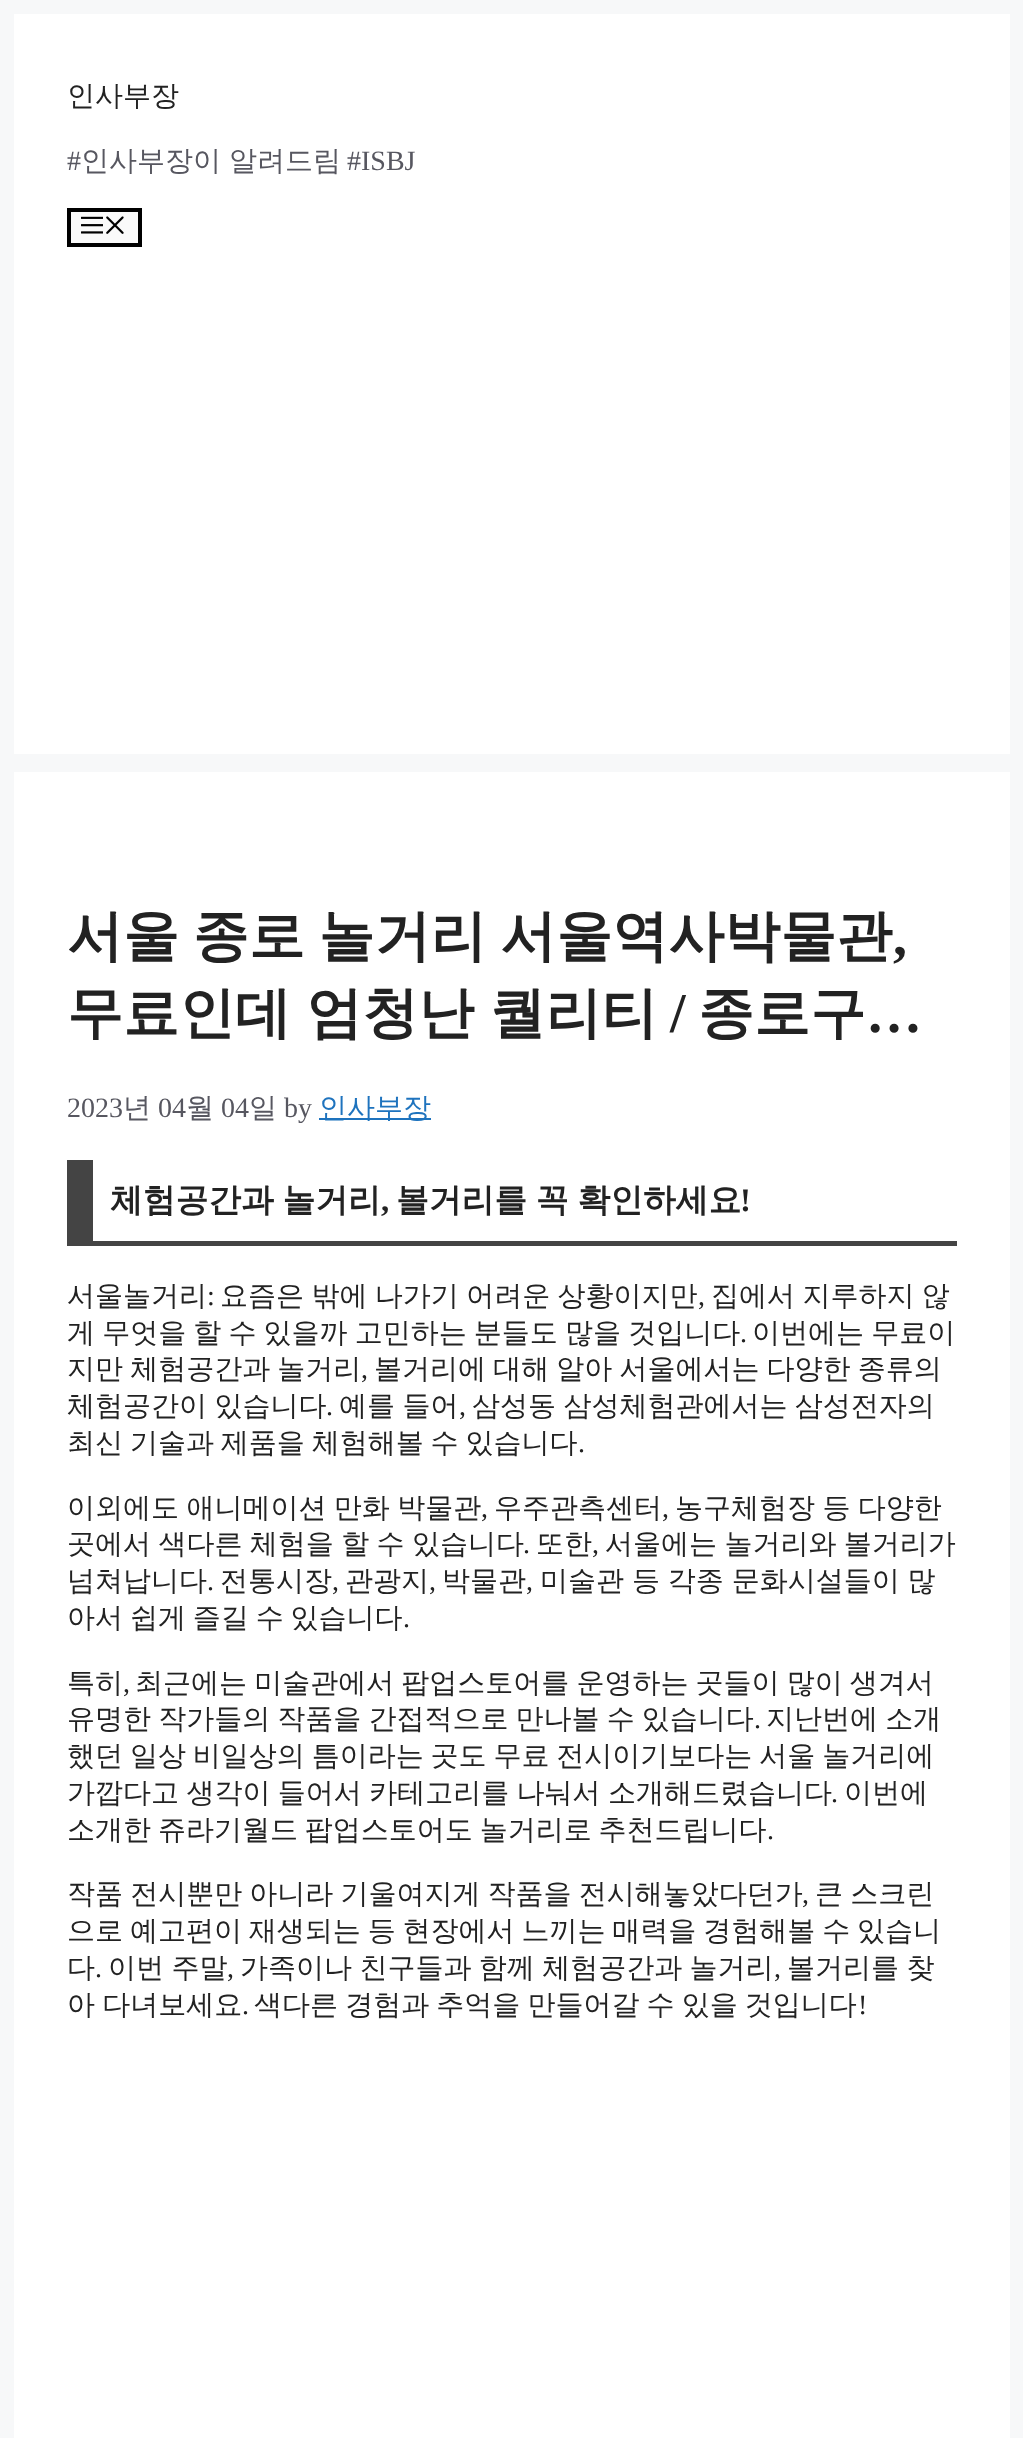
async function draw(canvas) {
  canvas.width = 1023;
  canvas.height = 2438;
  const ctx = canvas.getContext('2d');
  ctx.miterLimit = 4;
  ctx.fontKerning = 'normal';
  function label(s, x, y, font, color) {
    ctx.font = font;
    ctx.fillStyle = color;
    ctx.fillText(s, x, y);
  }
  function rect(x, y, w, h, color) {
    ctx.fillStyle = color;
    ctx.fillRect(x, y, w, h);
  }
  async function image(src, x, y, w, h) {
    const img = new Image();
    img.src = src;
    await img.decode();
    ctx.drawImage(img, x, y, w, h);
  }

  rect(0, 0, 1023, 2438, '#f7f8f9');
  rect(14, 14, 996, 740, '#fff');
  label('인사부장', 67, 105, '500 28px WenQuanYi Zen Hei', '#222');
  label('#', 67, 170, '28px Liberation Serif', '#575760');
  ctx.wordSpacing = '-0.5px';
  label('인사부장이 알려드림', 81, 170, '500 28px WenQuanYi Zen Hei', '#575760');
  ctx.wordSpacing = '0px';
  label('#ISBJ', 347, 170, '28px Liberation Serif', '#575760');
  ctx.fillStyle = '#fafafa';
  ctx.beginPath();
  ctx.rect(69, 210, 71, 35);
  ctx.fill();
  ctx.strokeStyle = '#000';
  ctx.lineWidth = 4;
  ctx.stroke();
  await image('assets/img1.png', 81, 216, 22, 18);
  await image('assets/img2.png', 106, 216, 18, 18);
  rect(14, 772, 996, 1666, '#fff');
  ctx.wordSpacing = '-3px';
  label('서울 종로 놀거리 서울역사박물관', 67, 955, 'bold 56px WenQuanYi Zen Hei', '#222');
  ctx.wordSpacing = '0px';
  label(',', 893, 955, 'bold 56px Liberation Serif', '#222');
  ctx.wordSpacing = '-1.5px';
  label('무료인데 엄청난 퀄리티', 67, 1032, 'bold 56px WenQuanYi Zen Hei', '#222');
  ctx.wordSpacing = '0px';
  label('/', 670, 1032, 'bold 56px Liberation Serif', '#222');
  label('종로구', 698, 1032, 'bold 56px WenQuanYi Zen Hei', '#222');
  label('…', 866, 1032, 'bold 56px Liberation Serif', '#222');
  label('2023', 67, 1117, '28px Liberation Serif', '#575760');
  label('년', 123, 1117, '500 28px WenQuanYi Zen Hei', '#575760');
  label('04', 158, 1117, '28px Liberation Serif', '#575760');
  label('월', 186, 1117, '500 28px WenQuanYi Zen Hei', '#575760');
  label('04', 221, 1117, '28px Liberation Serif', '#575760');
  label('일', 249, 1117, '500 28px WenQuanYi Zen Hei', '#575760');
  label('by', 284, 1117, '28px Liberation Serif', '#575760');
  rect(319, 1118, 112, 2, '#1e73be');
  label('인사부장', 319, 1117, '500 28px WenQuanYi Zen Hei', '#1e73be');
  rect(93, 1241, 864, 5, '#444');
  rect(67, 1160, 26, 86, '#444');
  ctx.wordSpacing = '-1px';
  label('체험공간과 놀거리', 110, 1211, 'bold 32.75px WenQuanYi Zen Hei', '#222');
  ctx.wordSpacing = '0px';
  label(',', 381, 1211, 'bold 32.75px Liberation Serif', '#222');
  ctx.wordSpacing = '-1px';
  label('볼거리를 꼭 확인하세요', 396, 1211, 'bold 32.75px WenQuanYi Zen Hei', '#222');
  ctx.wordSpacing = '0px';
  label('!', 740, 1211, 'bold 32.75px Liberation Serif', '#222');
  label('서울놀거리', 67, 1305, '500 28px WenQuanYi Zen Hei', '#222');
  label(':', 207, 1305, '28px Liberation Serif', '#222');
  ctx.wordSpacing = '-1px';
  label('요즘은 밖에 나가기 어려운 상황이지만', 220, 1305, '500 28px WenQuanYi Zen Hei', '#222');
  ctx.wordSpacing = '0px';
  label(',', 698, 1305, '28px Liberation Serif', '#222');
  ctx.wordSpacing = '-1px';
  label('집에서 지루하지 않', 711, 1305, '500 28px WenQuanYi Zen Hei', '#222');
  ctx.wordSpacing = '-1.25px';
  label('게 무엇을 할 수 있을까 고민하는 분들도 많을 것입니다', 67, 1342, '500 28px WenQuanYi Zen Hei', '#222');
  ctx.wordSpacing = '0px';
  label('.', 740, 1342, '28px Liberation Serif', '#222');
  ctx.wordSpacing = '-1.25px';
  label('이번에는 무료이', 752, 1342, '500 28px WenQuanYi Zen Hei', '#222');
  label('지만 체험공간과 놀거리', 67, 1378, '500 28px WenQuanYi Zen Hei', '#222');
  ctx.wordSpacing = '0px';
  label(',', 361, 1378, '28px Liberation Serif', '#222');
  ctx.wordSpacing = '-1.25px';
  label('볼거리에 대해 알아 서울에서는 다양한 종류의', 374, 1378, '500 28px WenQuanYi Zen Hei', '#222');
  ctx.wordSpacing = '-1px';
  label('체험공간이 있습니다', 67, 1415, '500 28px WenQuanYi Zen Hei', '#222');
  ctx.wordSpacing = '0px';
  label('.', 326, 1415, '28px Liberation Serif', '#222');
  ctx.wordSpacing = '-1px';
  label('예를 들어', 339, 1415, '500 28px WenQuanYi Zen Hei', '#222');
  ctx.wordSpacing = '0px';
  label(',', 459, 1415, '28px Liberation Serif', '#222');
  ctx.wordSpacing = '-1px';
  label('삼성동 삼성체험관에서는 삼성전자의', 472, 1415, '500 28px WenQuanYi Zen Hei', '#222');
  ctx.wordSpacing = '-1.5px';
  label('최신 기술과 제품을 체험해볼 수 있습니다', 67, 1452, '500 28px WenQuanYi Zen Hei', '#222');
  ctx.wordSpacing = '0px';
  label('.', 578, 1452, '28px Liberation Serif', '#222');
  ctx.wordSpacing = '-1px';
  label('이외에도 애니메이션 만화 박물관', 67, 1517, '500 28px WenQuanYi Zen Hei', '#222');
  ctx.wordSpacing = '0px';
  label(',', 481, 1517, '28px Liberation Serif', '#222');
  label('우주관측센터', 494, 1517, '500 28px WenQuanYi Zen Hei', '#222');
  label(',', 662, 1517, '28px Liberation Serif', '#222');
  ctx.wordSpacing = '-1px';
  label('농구체험장 등 다양한', 675, 1517, '500 28px WenQuanYi Zen Hei', '#222');
  label('곳에서 색다른 체험을 할 수 있습니다', 67, 1553, '500 28px WenQuanYi Zen Hei', '#222');
  ctx.wordSpacing = '0px';
  label('.', 523, 1553, '28px Liberation Serif', '#222');
  label('또한', 536, 1553, '500 28px WenQuanYi Zen Hei', '#222');
  label(',', 592, 1553, '28px Liberation Serif', '#222');
  ctx.wordSpacing = '-1px';
  label('서울에는 놀거리와 볼거리가', 605, 1553, '500 28px WenQuanYi Zen Hei', '#222');
  ctx.wordSpacing = '0px';
  label('넘쳐납니다', 67, 1590, '500 28px WenQuanYi Zen Hei', '#222');
  label('.', 207, 1590, '28px Liberation Serif', '#222');
  label('전통시장', 220, 1590, '500 28px WenQuanYi Zen Hei', '#222');
  label(',', 332, 1590, '28px Liberation Serif', '#222');
  label('관광지', 345, 1590, '500 28px WenQuanYi Zen Hei', '#222');
  label(',', 429, 1590, '28px Liberation Serif', '#222');
  label('박물관', 442, 1590, '500 28px WenQuanYi Zen Hei', '#222');
  label(',', 526, 1590, '28px Liberation Serif', '#222');
  ctx.wordSpacing = '-0.5px';
  label('미술관 등 각종 문화시설들이 많', 540, 1590, '500 28px WenQuanYi Zen Hei', '#222');
  ctx.wordSpacing = '-1.5px';
  label('아서 쉽게 즐길 수 있습니다', 67, 1627, '500 28px WenQuanYi Zen Hei', '#222');
  ctx.wordSpacing = '0px';
  label('.', 403, 1627, '28px Liberation Serif', '#222');
  label('특히', 67, 1692, '500 28px WenQuanYi Zen Hei', '#222');
  label(',', 123, 1692, '28px Liberation Serif', '#222');
  ctx.wordSpacing = '-1.25px';
  label('최근에는 미술관에서 팝업스토어를 운영하는 곳들이 많이 생겨서', 135, 1692, '500 28px WenQuanYi Zen Hei', '#222');
  label('유명한 작가들의 작품을 간접적으로 만나볼 수 있습니다', 67, 1728, '500 28px WenQuanYi Zen Hei', '#222');
  ctx.wordSpacing = '0px';
  label('.', 754, 1728, '28px Liberation Serif', '#222');
  ctx.wordSpacing = '-1.25px';
  label('지난번에 소개', 766, 1728, '500 28px WenQuanYi Zen Hei', '#222');
  ctx.wordSpacing = '-1.5px';
  label('했던 일상 비일상의 틈이라는 곳도 무료 전시이기보다는 서울 놀거리에', 67, 1765, '500 28px WenQuanYi Zen Hei', '#222');
  ctx.wordSpacing = '-1px';
  label('가깝다고 생각이 들어서 카테고리를 나눠서 소개해드렸습니다', 67, 1802, '500 28px WenQuanYi Zen Hei', '#222');
  ctx.wordSpacing = '0px';
  label('.', 831, 1802, '28px Liberation Serif', '#222');
  label('이번에', 844, 1802, '500 28px WenQuanYi Zen Hei', '#222');
  ctx.wordSpacing = '-1.5px';
  label('소개한 쥬라기월드 팝업스토어도 놀거리로 추천드립니다', 67, 1839, '500 28px WenQuanYi Zen Hei', '#222');
  ctx.wordSpacing = '0px';
  label('.', 767, 1839, '28px Liberation Serif', '#222');
  ctx.wordSpacing = '-1.25px';
  label('작품 전시뿐만 아니라 기울여지게 작품을 전시해놓았다던가', 67, 1903, '500 28px WenQuanYi Zen Hei', '#222');
  ctx.wordSpacing = '0px';
  label(',', 802, 1903, '28px Liberation Serif', '#222');
  ctx.wordSpacing = '-1.25px';
  label('큰 스크린', 815, 1903, '500 28px WenQuanYi Zen Hei', '#222');
  ctx.wordSpacing = '-1.5px';
  label('으로 예고편이 재생되는 등 현장에서 느끼는 매력을 경험해볼 수 있습니', 67, 1940, '500 28px WenQuanYi Zen Hei', '#222');
  ctx.wordSpacing = '0px';
  label('다', 67, 1977, '500 28px WenQuanYi Zen Hei', '#222');
  label('.', 95, 1977, '28px Liberation Serif', '#222');
  ctx.wordSpacing = '-1px';
  label('이번 주말', 108, 1977, '500 28px WenQuanYi Zen Hei', '#222');
  ctx.wordSpacing = '0px';
  label(',', 227, 1977, '28px Liberation Serif', '#222');
  ctx.wordSpacing = '-1px';
  label('가족이나 친구들과 함께 체험공간과 놀거리', 240, 1977, '500 28px WenQuanYi Zen Hei', '#222');
  ctx.wordSpacing = '0px';
  label(',', 774, 1977, '28px Liberation Serif', '#222');
  ctx.wordSpacing = '-1px';
  label('볼거리를 찾', 787, 1977, '500 28px WenQuanYi Zen Hei', '#222');
  ctx.wordSpacing = '-1.25px';
  label('아 다녀보세요', 67, 2014, '500 28px WenQuanYi Zen Hei', '#222');
  ctx.wordSpacing = '0px';
  label('.', 242, 2014, '28px Liberation Serif', '#222');
  ctx.wordSpacing = '-1.25px';
  label('색다른 경험과 추억을 만들어갈 수 있을 것입니다', 254, 2014, '500 28px WenQuanYi Zen Hei', '#222');
  ctx.wordSpacing = '0px';
  label('!', 858, 2014, '28px Liberation Serif', '#222');
}

draw(document.querySelector('canvas'));
